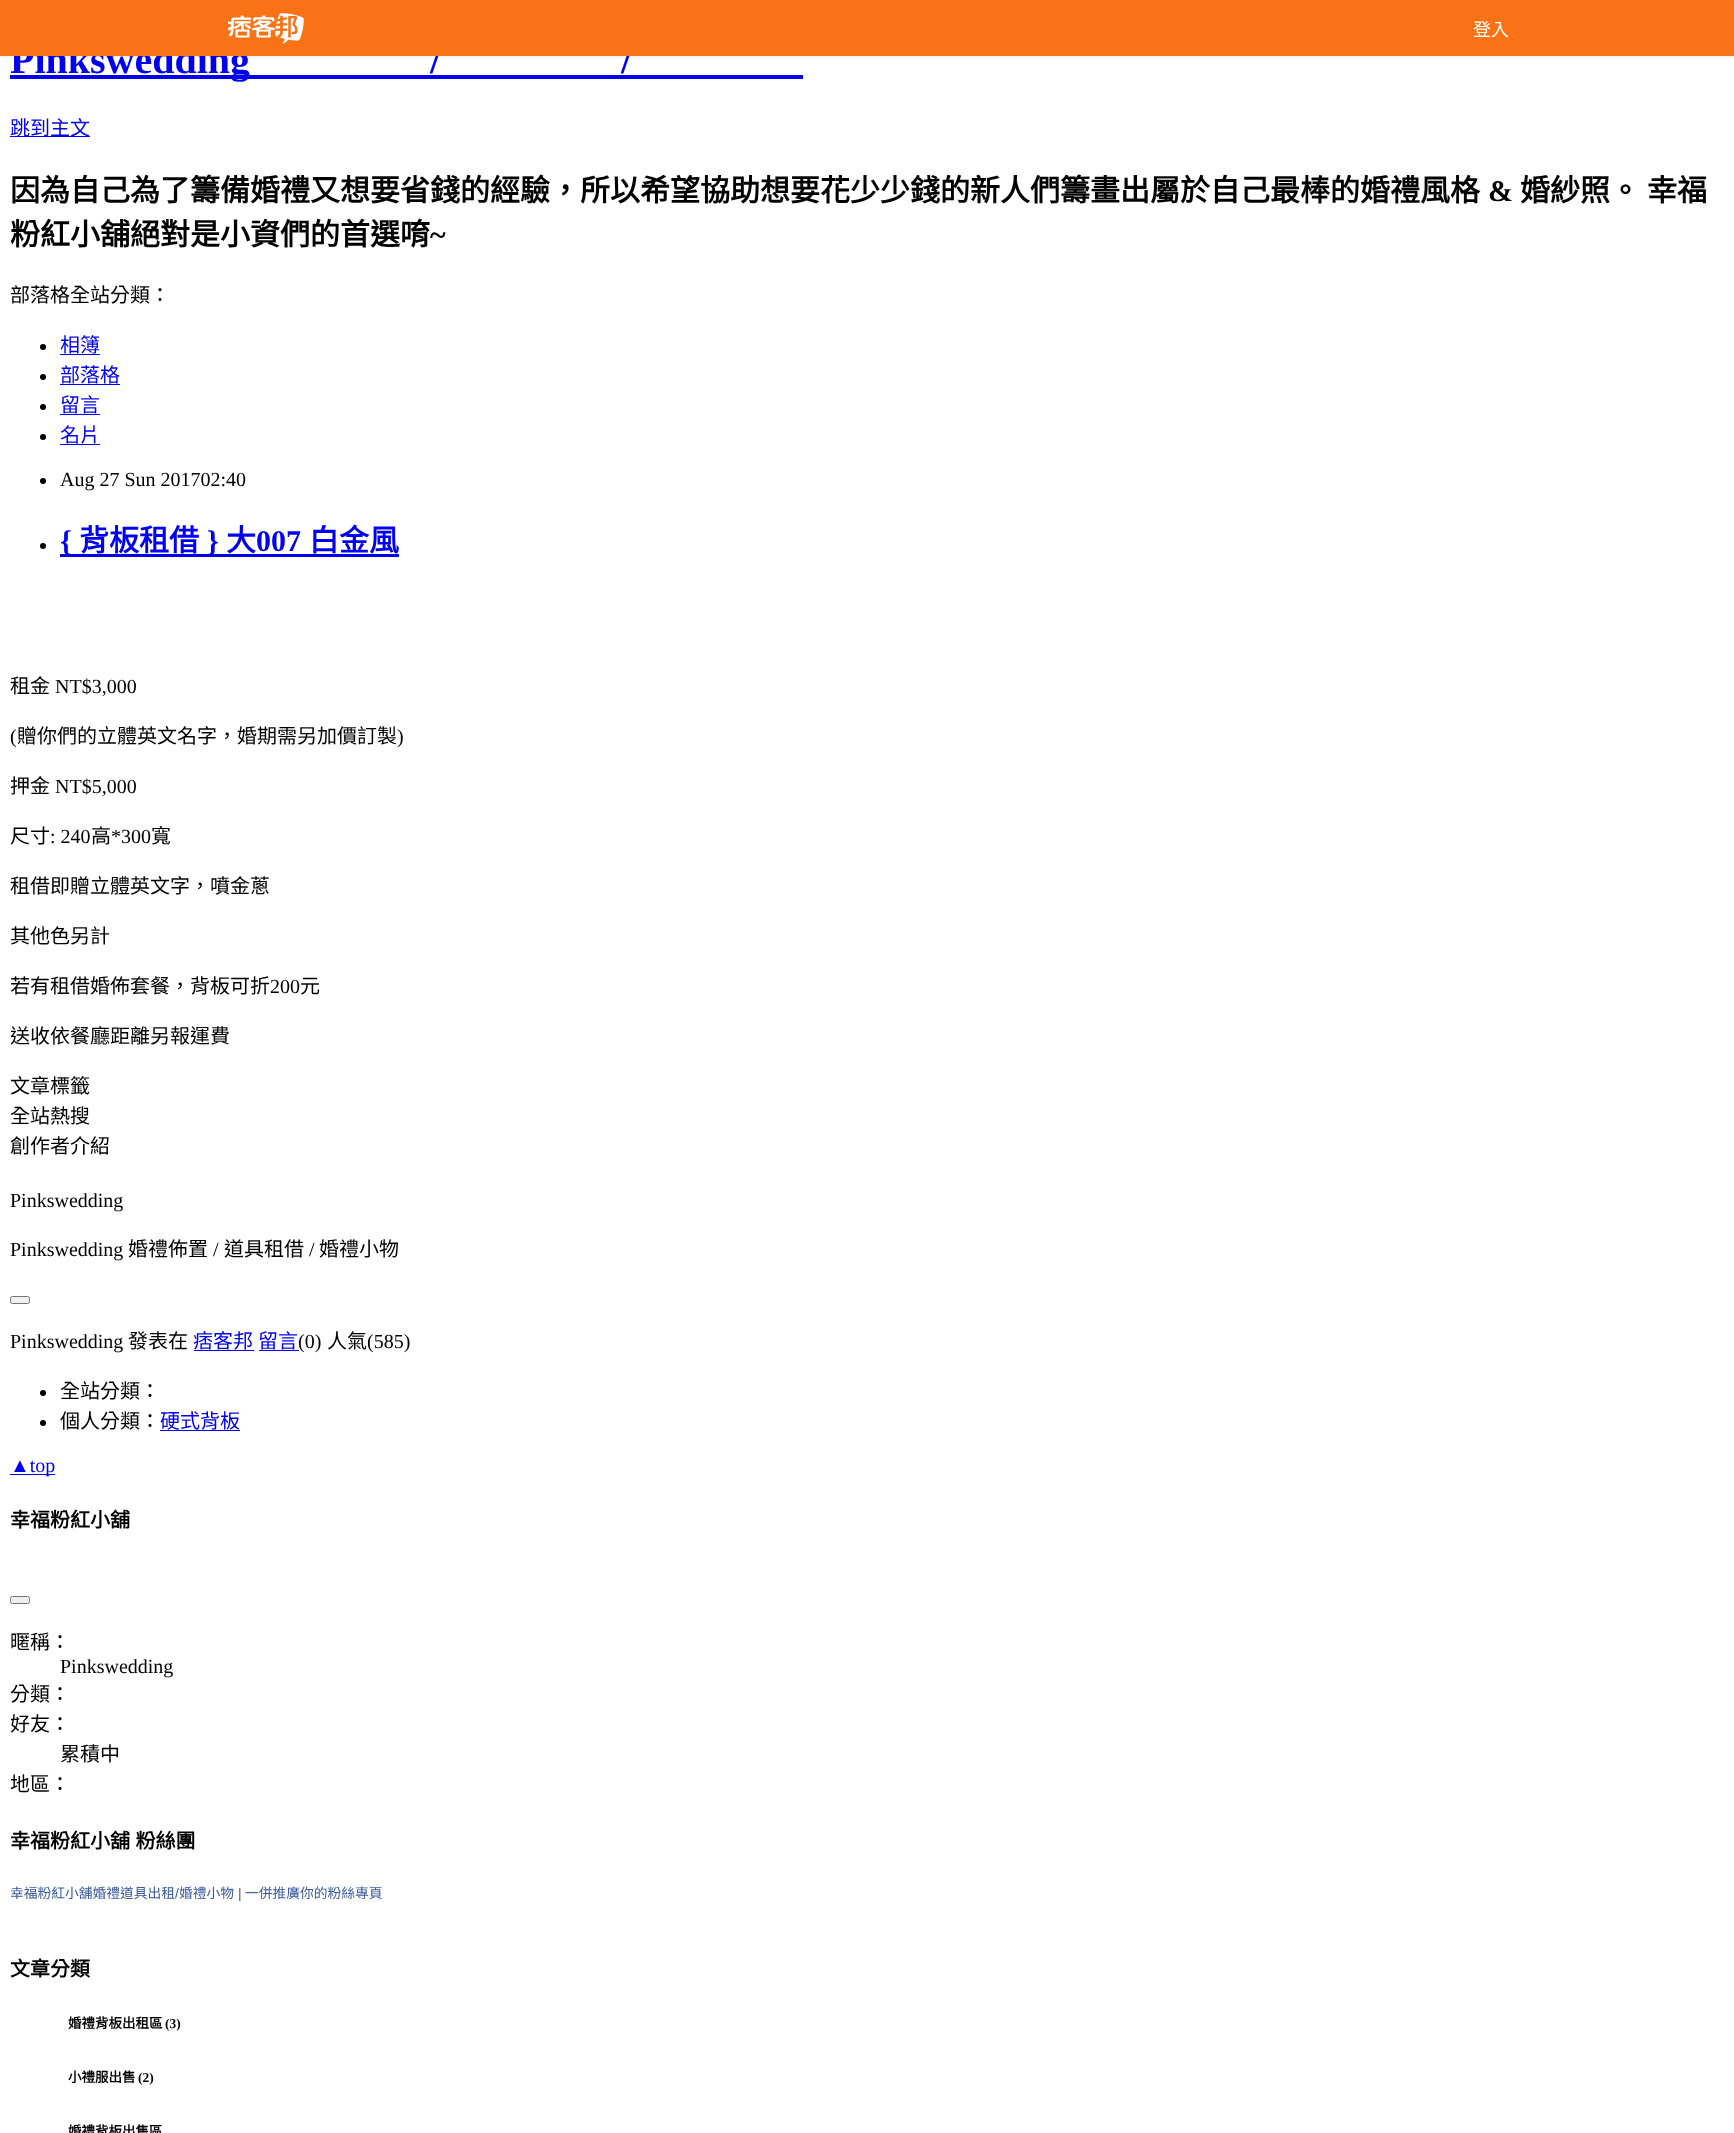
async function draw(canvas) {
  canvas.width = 1734;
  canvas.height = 2133;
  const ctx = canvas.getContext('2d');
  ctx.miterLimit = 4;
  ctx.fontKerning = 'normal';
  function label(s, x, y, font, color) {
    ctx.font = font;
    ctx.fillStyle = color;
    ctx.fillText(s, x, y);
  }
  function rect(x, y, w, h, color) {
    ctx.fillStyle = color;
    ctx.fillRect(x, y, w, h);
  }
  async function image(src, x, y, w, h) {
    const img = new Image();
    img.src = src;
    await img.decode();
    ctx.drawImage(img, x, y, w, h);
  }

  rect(0, 0, 1734, 2133, '#fff');
  ctx.fillStyle = '#0000000d';
  ctx.filter = 'blur(1px)';
  ctx.beginPath();
  ctx.rect(0, 1, 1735, 57);
  ctx.fill();
  ctx.filter = 'none';
  rect(10, 75, 793, 4, '#00e');
  label('Pinkswedding', 10, 73, 'bold 40px Liberation Serif', '#00e');
  label('/', 430, 73, 'bold 40px Liberation Serif', '#00e');
  label('/', 621, 73, 'bold 40px Liberation Serif', '#00e');
  rect(0, 0, 1734, 56, '#f97316');
  await image('assets/img1.png', 228, 13, 76, 31);
  label('登入', 1473, 36, '18px Noto Sans CJK TC', '#fff');
  rect(10, 136, 80, 1, '#00e');
  label('跳到主文', 10, 135, '20px Noto Sans CJK TC', '#00e');
  label('因為自己為了籌備婚禮又想要省錢的經驗，所以希望協助想要花少少錢的新人們籌畫出屬於自己最棒的婚禮風格', 10, 201, 'bold 30px Noto Sans CJK TC', '#000');
  label('&', 1488, 201, 'bold 30px Liberation Serif', '#000');
  label('婚紗照。', 1520, 201, 'bold 30px Noto Sans CJK TC', '#000');
  label('幸福', 1647, 201, 'bold 30px Noto Sans CJK TC', '#000');
  label('粉紅小舖絕對是小資們的首選唷', 10, 245, 'bold 30px Noto Sans CJK TC', '#000');
  label('~', 430, 245, 'bold 30px Liberation Serif', '#000');
  label('部落格全站分類：', 10, 302, '20px Noto Sans CJK TC', '#000');
  ctx.beginPath();
  ctx.arc(43, 347, 3, 0, 2 * Math.PI);
  ctx.fill();
  label('相簿', 60, 352, '20px Noto Sans CJK TC', '#00e');
  rect(60, 354, 40, 1, '#00e');
  ctx.fillStyle = '#000';
  ctx.beginPath();
  ctx.arc(43, 377, 3, 0, 2 * Math.PI);
  ctx.fill();
  label('部落格', 60, 382, '20px Noto Sans CJK TC', '#00e');
  rect(60, 384, 60, 1, '#00e');
  ctx.fillStyle = '#000';
  ctx.beginPath();
  ctx.arc(43, 407, 3, 0, 2 * Math.PI);
  ctx.fill();
  label('留言', 60, 412, '20px Noto Sans CJK TC', '#00e');
  rect(60, 414, 40, 1, '#00e');
  ctx.fillStyle = '#000';
  ctx.beginPath();
  ctx.arc(43, 437, 3, 0, 2 * Math.PI);
  ctx.fill();
  label('名片', 60, 442, '20px Noto Sans CJK TC', '#00e');
  rect(60, 444, 40, 1, '#00e');
  ctx.fillStyle = '#000';
  ctx.beginPath();
  ctx.arc(43, 481, 3, 0, 2 * Math.PI);
  ctx.fill();
  label('Aug 27 Sun 201702:40', 60, 486, '20px Liberation Serif', '#000');
  ctx.beginPath();
  ctx.arc(43, 546, 3, 0, 2 * Math.PI);
  ctx.fill();
  rect(60, 554, 339, 3, '#00e');
  label('{', 60, 551, 'bold 30px Liberation Serif', '#00e');
  label('背板租借', 79, 551, 'bold 30px Noto Sans CJK TC', '#00e');
  label('}', 207, 551, 'bold 30px Liberation Serif', '#00e');
  label('大', 226, 551, 'bold 30px Noto Sans CJK TC', '#00e');
  label('007', 256, 551, 'bold 30px Liberation Serif', '#00e');
  label('白金風', 309, 551, 'bold 30px Noto Sans CJK TC', '#00e');
  label('租金', 10, 693, '20px Noto Sans CJK TC', '#000');
  label('NT$3,000', 55, 693, '20px Liberation Serif', '#000');
  label('(', 10, 743, '20px Liberation Serif', '#000');
  label('贈你們的立體英文名字，婚期需另加價訂製', 17, 743, '20px Noto Sans CJK TC', '#000');
  label(')', 397, 743, '20px Liberation Serif', '#000');
  label('押金', 10, 793, '20px Noto Sans CJK TC', '#000');
  label('NT$5,000', 55, 793, '20px Liberation Serif', '#000');
  label('尺寸', 10, 843, '20px Noto Sans CJK TC', '#000');
  label(': 240', 50, 843, '20px Liberation Serif', '#000');
  label('高', 91, 843, '20px Noto Sans CJK TC', '#000');
  label('*300', 111, 843, '20px Liberation Serif', '#000');
  label('寬', 151, 843, '20px Noto Sans CJK TC', '#000');
  label('租借即贈立體英文字，噴金蔥', 10, 893, '20px Noto Sans CJK TC', '#000');
  label('其他色另計', 10, 943, '20px Noto Sans CJK TC', '#000');
  label('若有租借婚佈套餐，背板可折', 10, 993, '20px Noto Sans CJK TC', '#000');
  label('200', 270, 993, '20px Liberation Serif', '#000');
  label('元', 300, 993, '20px Noto Sans CJK TC', '#000');
  label('送收依餐廳距離另報運費', 10, 1043, '20px Noto Sans CJK TC', '#000');
  label('文章標籤', 10, 1093, '20px Noto Sans CJK TC', '#000');
  label('全站熱搜', 10, 1123, '20px Noto Sans CJK TC', '#000');
  label('創作者介紹', 10, 1153, '20px Noto Sans CJK TC', '#000');
  label('Pinkswedding', 10, 1207, '20px Liberation Serif', '#000');
  label('Pinkswedding', 10, 1256, '20px Liberation Serif', '#000');
  label('婚禮佈置', 128, 1256, '20px Noto Sans CJK TC', '#000');
  label('/', 213, 1256, '20px Liberation Serif', '#000');
  label('道具租借', 224, 1256, '20px Noto Sans CJK TC', '#000');
  label('/', 309, 1256, '20px Liberation Serif', '#000');
  label('婚禮小物', 319, 1256, '20px Noto Sans CJK TC', '#000');
  ctx.fillStyle = '#efefef';
  ctx.beginPath();
  ctx.roundRect(10.5, 1296.5, 19, 7, 2);
  ctx.fill();
  ctx.strokeStyle = '#767676';
  ctx.stroke();
  label('Pinkswedding', 10, 1348, '20px Liberation Serif', '#000');
  label('發表在', 128, 1348, '20px Noto Sans CJK TC', '#000');
  label('痞客邦', 193, 1348, '20px Noto Sans CJK TC', '#00e');
  rect(194, 1350, 60, 1, '#00e');
  label('留言', 258, 1348, '20px Noto Sans CJK TC', '#00e');
  rect(259, 1350, 40, 1, '#00e');
  label('(0)', 298, 1348, '20px Liberation Serif', '#000');
  label('人氣', 327, 1348, '20px Noto Sans CJK TC', '#000');
  label('(585)', 367, 1348, '20px Liberation Serif', '#000');
  ctx.beginPath();
  ctx.arc(43, 1393, 3, 0, 2 * Math.PI);
  ctx.fill();
  label('全站分類：', 60, 1398, '20px Noto Sans CJK TC', '#000');
  ctx.beginPath();
  ctx.arc(43, 1423, 3, 0, 2 * Math.PI);
  ctx.fill();
  label('個人分類：', 60, 1428, '20px Noto Sans CJK TC', '#000');
  label('硬式背板', 160, 1428, '20px Noto Sans CJK TC', '#00e');
  rect(160, 1430, 80, 1, '#00e');
  rect(10, 1474, 45, 1, '#00e');
  label('▲top', 10, 1472, '20px Liberation Serif', '#00e');
  label('幸福粉紅小舖', 10, 1527, 'bold 20px Noto Sans CJK TC', '#000');
  ctx.fillStyle = '#efefef';
  ctx.beginPath();
  ctx.roundRect(10.5, 1596.5, 19, 7, 2);
  ctx.fill();
  ctx.stroke();
  label('暱稱：', 10, 1649, '20px Noto Sans CJK TC', '#000');
  label('Pinkswedding', 60, 1673, '20px Liberation Serif', '#000');
  label('分類：', 10, 1701, '20px Noto Sans CJK TC', '#000');
  label('好友：', 10, 1731, '20px Noto Sans CJK TC', '#000');
  label('累積中', 60, 1761, '20px Noto Sans CJK TC', '#000');
  label('地區：', 10, 1791, '20px Noto Sans CJK TC', '#000');
  ctx.wordSpacing = '1px';
  label('幸福粉紅小舖 粉絲團', 10, 1848, 'bold 20px Noto Sans CJK TC', '#000');
  ctx.wordSpacing = '0px';
  label('幸福粉紅小舖婚禮道具出租', 10, 1898, '13.75px Noto Sans CJK TC', '#3b5998');
  label('/', 175, 1898, '13.75px Liberation Sans', '#3b5998');
  label('婚禮小物', 179, 1898, '13.75px Noto Sans CJK TC', '#3b5998');
  label('|', 238, 1898, '13.75px Liberation Sans', '#555');
  label('一併推廣你的粉絲專頁', 245, 1898, '13.75px Noto Sans CJK TC', '#3b5998');
  label('文章分類', 10, 1976, 'bold 20px Noto Sans CJK TC', '#000');
  label('婚禮背板出租區', 68, 2028, 'bold 13.5px Noto Sans CJK TC', '#000');
  label('(3)', 165, 2028, 'bold 13.5px Liberation Serif', '#000');
  label('小禮服出售', 68, 2082, 'bold 13.5px Noto Sans CJK TC', '#000');
  label('(2)', 138, 2082, 'bold 13.5px Liberation Serif', '#000');
  label('婚禮背板出售區', 68, 2136, 'bold 13.5px Noto Sans CJK TC', '#000');
}

draw(document.querySelector('canvas'));
